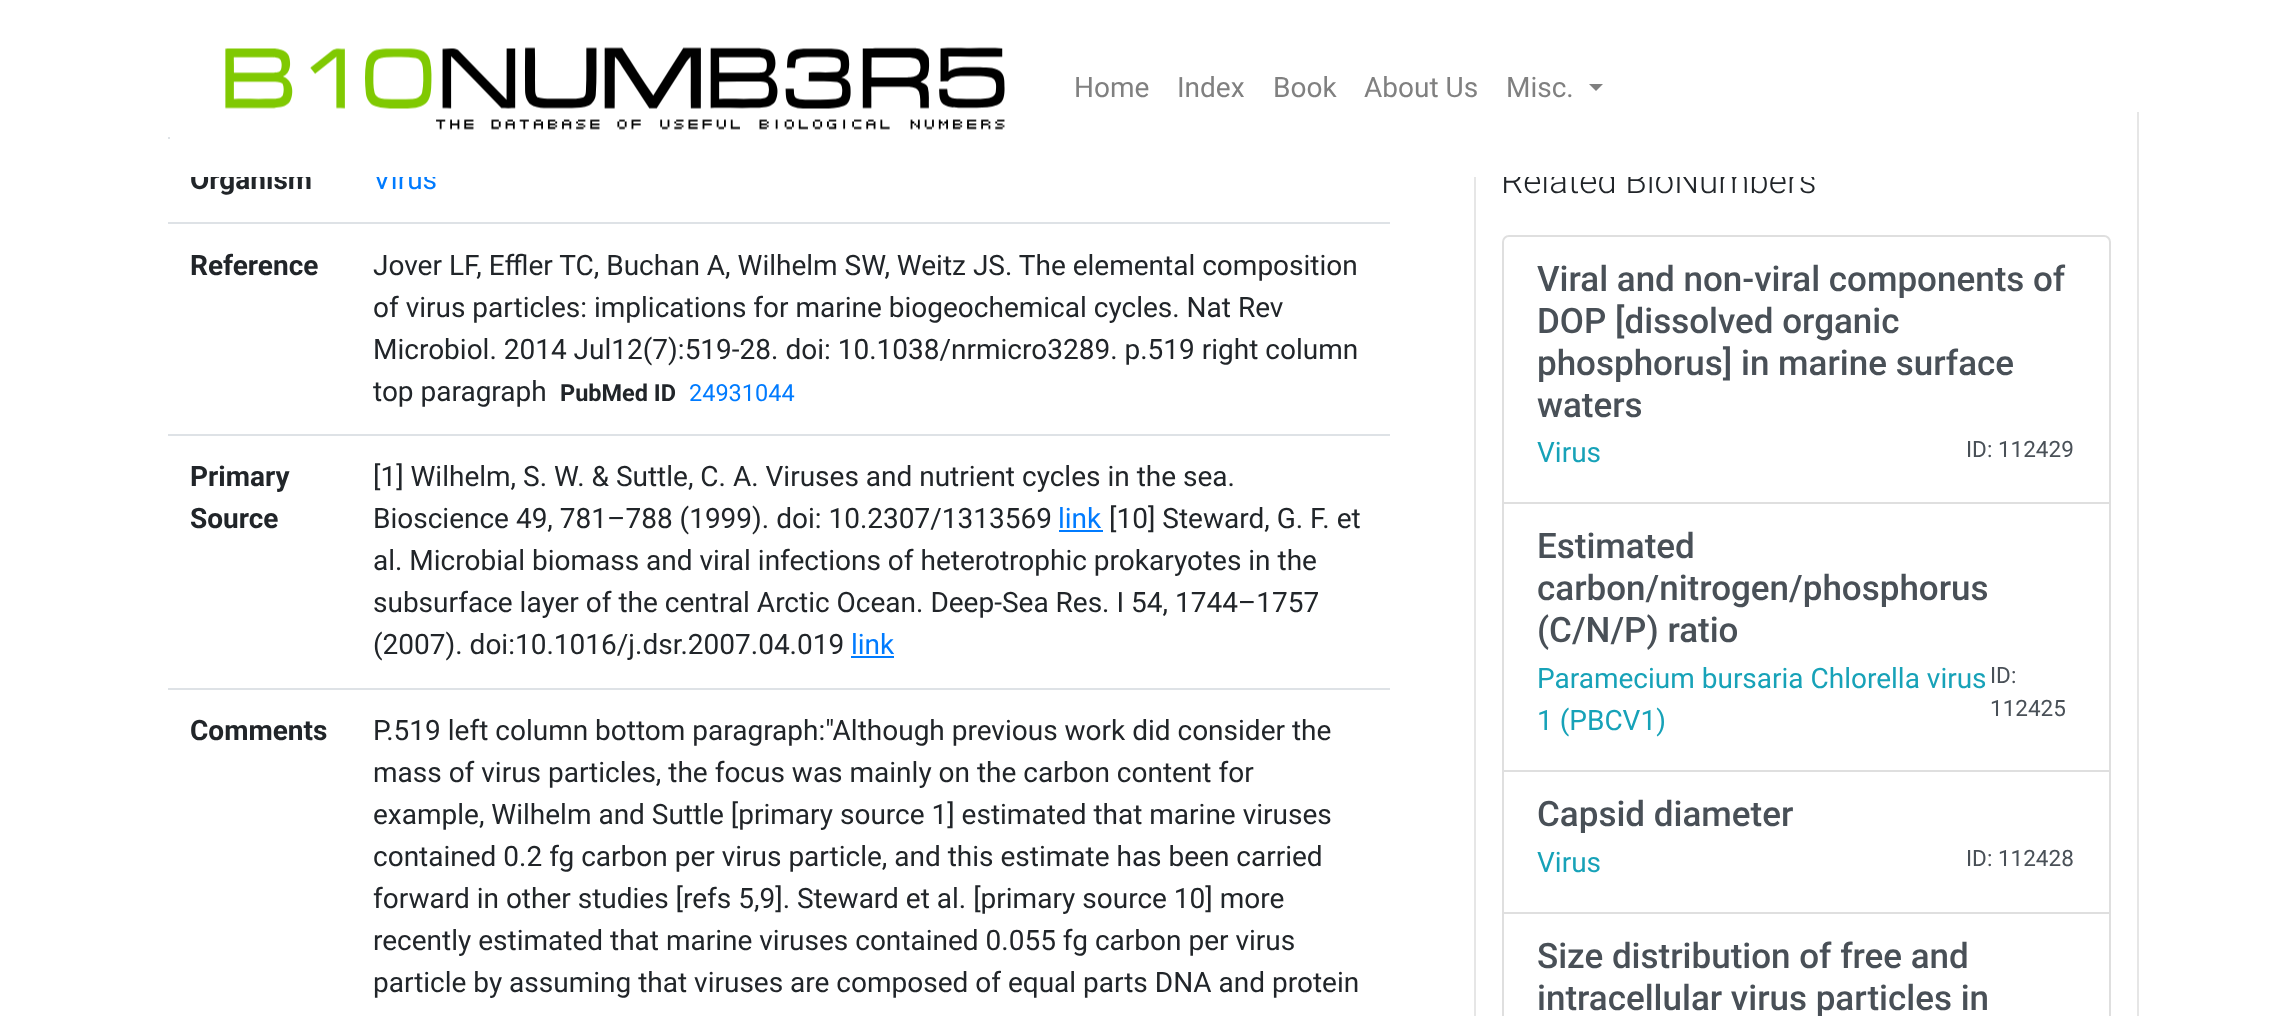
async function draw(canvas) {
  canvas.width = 2279;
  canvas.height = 1016;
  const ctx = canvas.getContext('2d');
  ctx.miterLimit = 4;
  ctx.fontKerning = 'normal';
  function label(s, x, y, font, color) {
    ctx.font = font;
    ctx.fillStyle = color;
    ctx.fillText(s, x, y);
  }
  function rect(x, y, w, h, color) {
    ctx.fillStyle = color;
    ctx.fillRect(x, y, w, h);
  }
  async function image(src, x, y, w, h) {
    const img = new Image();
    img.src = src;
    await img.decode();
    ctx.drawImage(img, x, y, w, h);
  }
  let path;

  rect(0, 0, 2279, 1016, '#fff');
  label('Organism', 190, 189, 'bold 28px Roboto', '#212529');
  label('Virus', 373, 189, '28px Roboto', '#007bff');
  label('Related BioNumbers', 1501, 193, '300 35px Roboto', '#212529');
  rect(191, 166, 1623, 11, '#fff');
  await image('assets/img1.png', 225, 47, 780, 83);
  label('Home', 1074, 97, '28px Roboto', '#808080');
  label('Index', 1177, 97, '28px Roboto', '#808080');
  label('Book', 1273, 97, '28px Roboto', '#808080');
  label('About Us', 1364, 97, '28px Roboto', '#808080');
  label('Misc.', 1506, 97, '28px Roboto', '#808080');
  path = new Path2D('M1589 84H1603L1596 91Z');
  ctx.fill(path);
  rect(168, 137, 2, 2, '#dee2e6');
  label('Reference', 190, 275, 'bold 28px Roboto', '#212529');
  rect(168, 222, 1222, 2, '#dee2e6');
  label('Jover LF, Effler TC, Buchan A, Wilhelm SW, Weitz JS. The elemental composition', 373, 275, '28px Roboto', '#212529');
  label('of virus particles: implications for marine biogeochemical cycles. Nat Rev', 373, 317, '28px Roboto', '#212529');
  label('Microbiol. 2014 Jul12(7):519-28. doi: 10.1038/nrmicro3289. p.519 right column', 373, 359, '28px Roboto', '#212529');
  label('top paragraph', 373, 401, '28px Roboto', '#212529');
  label('PubMed ID', 560, 401, 'bold 23.5px Roboto', '#212529');
  label('24931044', 689, 401, '23.5px Roboto', '#007bff');
  label('Primary', 190, 486, 'bold 28px Roboto', '#212529');
  label('Source', 190, 528, 'bold 28px Roboto', '#212529');
  rect(168, 434, 1222, 2, '#dee2e6');
  label('[1] Wilhelm, S. W. & Suttle, C. A. Viruses and nutrient cycles in the sea.', 373, 486, '28px Roboto', '#212529');
  label('Bioscience 49, 781–788 (1999). doi: 10.2307/1313569', 373, 528, '28px Roboto', '#212529');
  label('link', 1058, 528, '28px Roboto', '#007bff');
  rect(1059, 530, 44, 2, '#007bff');
  label('[10] Steward, G. F. et', 1109, 528, '28px Roboto', '#212529');
  label('al. Microbial biomass and viral infections of heterotrophic prokaryotes in the', 373, 570, '28px Roboto', '#212529');
  label('subsurface layer of the central Arctic Ocean. Deep-Sea Res. I 54, 1744–1757', 373, 612, '28px Roboto', '#212529');
  label('(2007). doi:10.1016/j.dsr.2007.04.019', 373, 654, '28px Roboto', '#212529');
  label('link', 851, 654, '28px Roboto', '#007bff');
  rect(851, 656, 43, 2, '#007bff');
  label('Comments', 190, 740, 'bold 28px Roboto', '#212529');
  rect(168, 688, 1222, 2, '#dee2e6');
  label('P.519 left column bottom paragraph:"Although previous work did consider the', 373, 740, '28px Roboto', '#212529');
  label('mass of virus particles, the focus was mainly on the carbon content for', 373, 782, '28px Roboto', '#212529');
  label('example, Wilhelm and Suttle [primary source 1] estimated that marine viruses', 373, 824, '28px Roboto', '#212529');
  label('contained 0.2 fg carbon per virus particle, and this estimate has been carried', 373, 866, '28px Roboto', '#212529');
  label('forward in other studies [refs 5,9]. Steward et al. [primary source 10] more', 373, 908, '28px Roboto', '#212529');
  label('recently estimated that marine viruses contained 0.055 fg carbon per virus', 373, 950, '28px Roboto', '#212529');
  label('particle by assuming that viruses are composed of equal parts DNA and protein', 373, 992, '28px Roboto', '#212529');
  rect(2137, 112, 2, 904, '#e6e6e6');
  rect(1474, 177, 2, 839, '#e6e6e6');
  ctx.beginPath();
  ctx.roundRect(1503, 236, 607, 267, [6, 6, 0, 0]);
  ctx.strokeStyle = '#dfdfdf';
  ctx.lineWidth = 2;
  ctx.stroke();
  label('Viral and non-viral components of', 1537, 291, '500 35px Roboto', '#495057');
  label('DOP [dissolved organic', 1537, 333, '500 35px Roboto', '#495057');
  label('phosphorus] in marine surface', 1537, 375, '500 35px Roboto', '#495057');
  label('waters', 1537, 417, '500 35px Roboto', '#495057');
  label('Virus', 1537, 462, '28px Roboto', '#17a2b8');
  label('ID: 112429', 1966, 457, '22.5px Roboto', '#495057');
  ctx.strokeRect(1503, 503, 607, 268);
  label('Estimated', 1537, 558, '500 35px Roboto', '#495057');
  label('carbon/nitrogen/phosphorus', 1537, 600, '500 35px Roboto', '#495057');
  label('(C/N/P) ratio', 1537, 642, '500 35px Roboto', '#495057');
  label('Paramecium bursaria Chlorella virus', 1537, 688, '28px Roboto', '#17a2b8');
  label('1 (PBCV1)', 1537, 730, '28px Roboto', '#17a2b8');
  label('ID:', 1990, 683, '22.5px Roboto', '#495057');
  label('112425', 1990, 716, '22.5px Roboto', '#495057');
  ctx.strokeRect(1503, 771, 607, 142);
  label('Capsid diameter', 1537, 826, '500 35px Roboto', '#495057');
  label('Virus', 1537, 872, '28px Roboto', '#17a2b8');
  label('ID: 112428', 1966, 866, '22.5px Roboto', '#495057');
  ctx.strokeRect(1503, 913, 607, 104);
  label('Size distribution of free and', 1537, 968, '500 35px Roboto', '#495057');
  label('intracellular virus particles in', 1537, 1010, '500 35px Roboto', '#495057');
}

draw(document.querySelector('canvas'));
